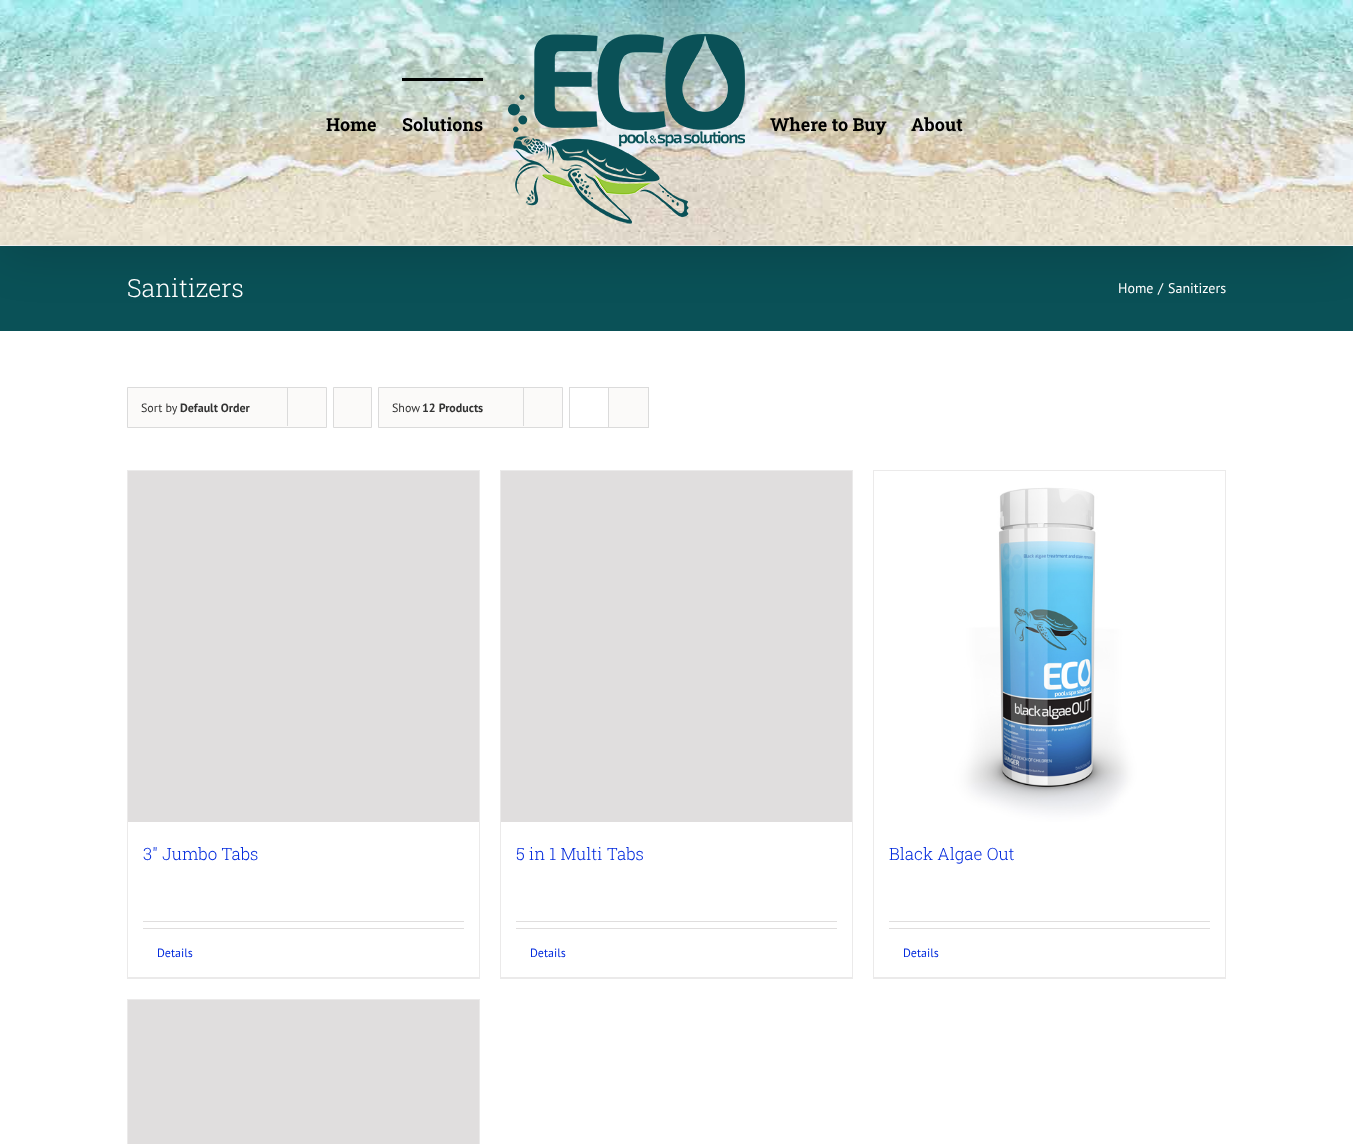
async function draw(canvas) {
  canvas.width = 1353;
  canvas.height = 1144;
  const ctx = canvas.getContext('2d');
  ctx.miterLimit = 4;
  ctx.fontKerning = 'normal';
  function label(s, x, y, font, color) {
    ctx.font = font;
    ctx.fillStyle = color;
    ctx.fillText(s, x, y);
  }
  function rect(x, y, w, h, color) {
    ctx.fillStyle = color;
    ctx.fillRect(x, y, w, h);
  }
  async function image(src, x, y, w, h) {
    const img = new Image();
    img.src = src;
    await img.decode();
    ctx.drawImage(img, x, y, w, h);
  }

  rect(0, 0, 1353, 1144, '#fff');
  rect(0, 246, 1353, 85, '#0a5157');
  ctx.fillStyle = '#00000024';
  ctx.filter = 'blur(25px)';
  ctx.beginPath();
  ctx.rect(2, 12, 1349, 241);
  ctx.fill();
  ctx.filter = 'none';
  await image('assets/img1.png', 0, 0, 1353, 245);
  label('Home', 326, 131, 'bold 18px Roboto Slab', '#000');
  rect(402, 78, 81, 3, '#000');
  label('Solutions', 402, 131, 'bold 18px Roboto Slab', '#000');
  await image('assets/img2.png', 508, 34, 237, 190);
  label('Where to Buy', 770, 131, 'bold 18px Roboto Slab', '#000');
  label('About', 911, 131, 'bold 18px Roboto Slab', '#000');
  label('Sanitizers', 127, 297, '300 25px Roboto Slab', '#fff');
  label('Home', 1118, 293, '14px PT Sans', '#fff');
  label('/', 1158, 293, '14px PT Sans', '#fff');
  label('Sanitizers', 1168, 293, '14px PT Sans', '#fff');
  ctx.fillStyle = '#fbfaf9';
  ctx.beginPath();
  ctx.rect(127.5, 387.5, 199, 40);
  ctx.fill();
  ctx.strokeStyle = '#dbdbdb';
  ctx.stroke();
  label('Sort by', 141, 412, '12px PT Sans', '#333');
  label('Default Order', 180, 412, 'bold 12px PT Sans', '#333');
  rect(287, 387, 1, 39, '#dbdbdb');
  ctx.fillStyle = '#fbfaf9';
  ctx.beginPath();
  ctx.rect(333.5, 387.5, 38, 40);
  ctx.fill();
  ctx.stroke();
  ctx.beginPath();
  ctx.rect(378.5, 387.5, 184, 40);
  ctx.fill();
  ctx.stroke();
  label('Show', 392, 412, '12px PT Sans', '#333');
  label('12 Products', 422, 412, 'bold 12px PT Sans', '#333');
  rect(523, 387, 1, 39, '#dbdbdb');
  ctx.strokeRect(569.5, 387.5, 79, 40);
  rect(608, 388, 1, 39, '#dbdbdb');
  rect(609, 388, 39, 39, '#fbfaf9');
  rect(127, 470, 353, 1, '#ebeaea');
  rect(479, 470, 1, 509, '#ebeaea');
  rect(127, 977, 353, 2, '#ebeaea');
  rect(127, 470, 1, 509, '#ebeaea');
  rect(128, 471, 351, 351, '#e0dede');
  label('3″ Jumbo Tabs', 143, 860, '300 17px Roboto Slab', '#022add');
  rect(143, 921, 321, 1, '#e0dede');
  rect(143, 928, 321, 1, '#e0dede');
  label('Details', 157, 957, '12px PT Sans', '#022add');
  rect(500, 470, 353, 1, '#ebeaea');
  rect(852, 470, 1, 509, '#ebeaea');
  rect(500, 977, 353, 2, '#ebeaea');
  rect(500, 470, 1, 509, '#ebeaea');
  rect(501, 471, 351, 351, '#e0dede');
  label('5 in 1 Multi Tabs', 516, 860, '300 17px Roboto Slab', '#022add');
  rect(516, 921, 321, 1, '#e0dede');
  rect(516, 928, 321, 1, '#e0dede');
  label('Details', 530, 957, '12px PT Sans', '#022add');
  rect(873, 470, 353, 1, '#ebeaea');
  rect(1225, 470, 1, 509, '#ebeaea');
  rect(873, 977, 353, 2, '#ebeaea');
  rect(873, 470, 1, 509, '#ebeaea');
  await image('assets/img3.png', 874, 471, 351, 351);
  label('Black Algae Out', 889, 860, '300 17px Roboto Slab', '#022add');
  rect(889, 921, 321, 1, '#e0dede');
  rect(889, 928, 321, 1, '#e0dede');
  label('Details', 903, 957, '12px PT Sans', '#022add');
  rect(127, 999, 353, 1, '#ebeaea');
  rect(479, 999, 1, 145, '#ebeaea');
  rect(127, 999, 1, 145, '#ebeaea');
  rect(128, 1000, 351, 144, '#e0dede');
}

draw(document.querySelector('canvas'));
